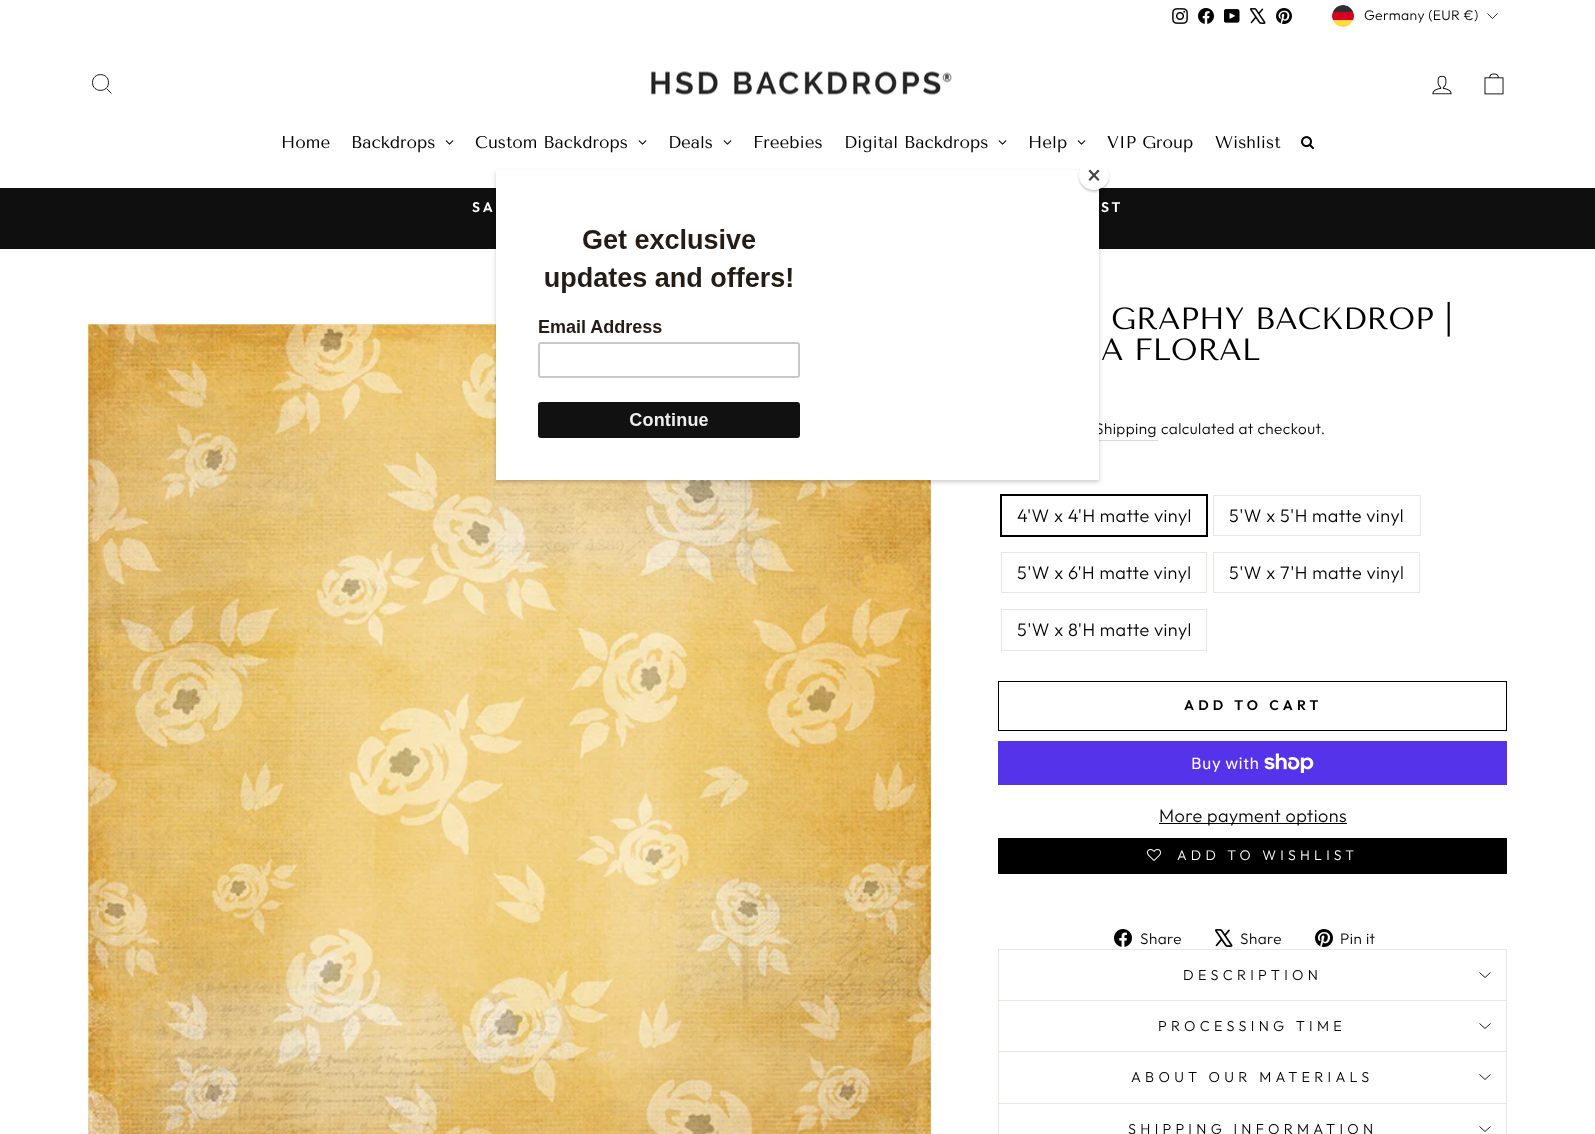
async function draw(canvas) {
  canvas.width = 1595;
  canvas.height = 1134;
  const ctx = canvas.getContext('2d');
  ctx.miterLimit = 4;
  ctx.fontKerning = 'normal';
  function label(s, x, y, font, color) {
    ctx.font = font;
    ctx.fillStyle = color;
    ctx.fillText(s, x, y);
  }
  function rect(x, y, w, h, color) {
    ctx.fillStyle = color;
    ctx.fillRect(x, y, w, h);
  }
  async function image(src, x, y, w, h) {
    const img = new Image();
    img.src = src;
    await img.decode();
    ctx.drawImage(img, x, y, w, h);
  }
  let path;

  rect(0, 0, 1595, 1134, '#fff');
  await image('assets/img1.png', 1172, 8, 16, 16);
  await image('assets/img2.png', 1198, 8, 16, 16);
  await image('assets/img3.png', 1224, 9, 16, 14);
  await image('assets/img4.png', 1250, 8, 16, 16);
  await image('assets/img5.png', 1276, 8, 16, 16);
  await image('assets/img6.png', 1332, 5, 22, 22);
  ctx.letterSpacing = '0.3px';
  label('Germany (EUR €)', 1364, 20, '300 14px Outfit', '#000');
  path = new Path2D('M1487.5 13.5L1492.5 18.5L1497.5 13.5');
  ctx.strokeStyle = '#000';
  ctx.lineWidth = 0.8;
  ctx.stroke(path);
  path = new Path2D('M108.5 82.5C108.5 93 92.5 93 92.5 82.5C92.5 72 108.5 72 108.5 82.5ZM111.5 93.5L106.5 88.5');
  ctx.lineWidth = 0.9;
  ctx.stroke(path);
  await image('assets/img7.png', 651, 71, 301, 24);
  await image('assets/img8.png', 1432, 75, 20, 20);
  await image('assets/img9.png', 1484, 73, 20, 22);
  ctx.letterSpacing = '0px';
  label('Home', 281, 148, '17px Tenor Sans', '#000');
  label('Backdrops', 351, 148, '17px Tenor Sans', '#000');
  await image('assets/img10.png', 445, 140, 9, 5);
  label('Custom Backdrops', 475, 148, '17px Tenor Sans', '#000');
  await image('assets/img10.png', 638, 140, 9, 5);
  label('Deals', 668, 148, '17px Tenor Sans', '#000');
  await image('assets/img10.png', 723, 140, 9, 5);
  label('Freebies', 753, 148, '17px Tenor Sans', '#000');
  label('Digital Backdrops', 844, 148, '17px Tenor Sans', '#000');
  await image('assets/img10.png', 998, 140, 9, 5);
  label('Help', 1028, 148, '17px Tenor Sans', '#000');
  await image('assets/img10.png', 1077, 140, 9, 5);
  label('VIP Group', 1107, 148, '17px Tenor Sans', '#000');
  label('Wishlist', 1215, 148, '17px Tenor Sans', '#000');
  await image('assets/img11.png', 1301, 136, 13, 14);
  rect(0, 188, 1595, 61, '#0f0f0f');
  ctx.letterSpacing = '3px';
  label('SA', 472, 212, '600 14px Outfit', '#fff');
  label('ST', 1101, 212, '600 14px Outfit', '#fff');
  await image('assets/img12.png', 88, 324, 843, 810);
  ctx.letterSpacing = '0px';
  label('GRAPHY BACKDROP |', 1111, 329, '30.6px Tenor Sans', '#000');
  label('A FLORAL', 1101, 360, '30.6px Tenor Sans', '#000');
  rect(1095, 440, 63, 1, '#d9d9d9');
  ctx.letterSpacing = '0.45px';
  label('Shipping', 1095, 434, '300 15.25px Outfit', '#000');
  label('calculated at checkout.', 1161, 434, '300 15.25px Outfit', '#000');
  ctx.lineWidth = 2;
  ctx.strokeRect(1001, 495, 206, 41);
  label('4\'W x 4\'H matte vinyl', 1017, 522, '300 18px Outfit', '#000');
  ctx.strokeStyle = '#e8e8e1';
  ctx.lineWidth = 1;
  ctx.strokeRect(1213.5, 495.5, 207, 40);
  label('5\'W x 5\'H matte vinyl', 1229, 522, '300 18px Outfit', '#000');
  ctx.strokeRect(1001.5, 552.5, 205, 40);
  label('5\'W x 6\'H matte vinyl', 1017, 579, '300 18px Outfit', '#000');
  ctx.strokeRect(1213.5, 552.5, 206, 40);
  label('5\'W x 7\'H matte vinyl', 1229, 579, '300 18px Outfit', '#000');
  ctx.strokeRect(1001.5, 609.5, 205, 41);
  label('5\'W x 8\'H matte vinyl', 1017, 636, '300 18px Outfit', '#000');
  ctx.strokeStyle = '#000';
  ctx.strokeRect(998.5, 681.5, 508, 49);
  ctx.letterSpacing = '4.25px';
  label('ADD TO CART', 1184, 710, '600 14px Outfit', '#000');
  rect(998, 741, 509, 44, '#5433eb');
  ctx.letterSpacing = '0.45px';
  label('Buy with', 1191, 769, '16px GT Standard', '#fff');
  await image('assets/img13.png', 1264, 753, 50, 20);
  rect(1159, 823, 188, 1, '#000');
  label('More payment options', 1159, 822, '300 18px Outfit', '#000');
  rect(998, 838, 509, 36, '#000');
  await image('assets/img14.png', 1147, 849, 14, 12);
  ctx.letterSpacing = '4.3px';
  label('ADD TO WISHLIST', 1177, 860, '300 14px Outfit', '#fff');
  await image('assets/img15.png', 1114, 929, 18, 18);
  ctx.letterSpacing = '0.45px';
  label('Share', 1140, 944, '300 15.25px Outfit', '#000');
  await image('assets/img16.png', 1215, 929, 18, 18);
  label('Share', 1240, 944, '300 15.25px Outfit', '#000');
  await image('assets/img17.png', 1315, 929, 18, 18);
  label('Pin it', 1340, 944, '300 15.25px Outfit', '#000');
  rect(998, 1000, 509, 1, '#e8e8e1');
  rect(998, 949, 509, 1, '#e8e8e1');
  rect(1506, 949, 1, 51, '#e8e8e1');
  rect(998, 949, 1, 51, '#e8e8e1');
  ctx.letterSpacing = '4.3px';
  label('DESCRIPTION', 1183, 980, '300 14.4px Outfit', '#000');
  path = new Path2D('M1479.5 972.5L1485 977.5L1490.5 972.5');
  ctx.lineWidth = 0.9;
  ctx.stroke(path);
  rect(998, 1051, 509, 1, '#e8e8e1');
  rect(1506, 1001, 1, 50, '#e8e8e1');
  rect(998, 1001, 1, 50, '#e8e8e1');
  label('PROCESSING TIME', 1158, 1031, '300 14.4px Outfit', '#000');
  path = new Path2D('M1479.5 1023.5L1485 1028.5L1490.5 1023.5');
  ctx.stroke(path);
  rect(998, 1103, 509, 1, '#e8e8e1');
  rect(1506, 1052, 1, 51, '#e8e8e1');
  rect(998, 1052, 1, 51, '#e8e8e1');
  label('ABOUT OUR MATERIALS', 1131, 1082, '300 14.4px Outfit', '#000');
  path = new Path2D('M1479.5 1074.5L1485 1079.5L1490.5 1074.5');
  ctx.stroke(path);
  rect(1506, 1104, 1, 30, '#e8e8e1');
  rect(998, 1104, 1, 30, '#e8e8e1');
  label('SHIPPING INFORMATION', 1128, 1134, '300 14.4px Outfit', '#000');
  path = new Path2D('M1479.5 1126.5L1485 1131.5L1490.5 1126.5');
  ctx.stroke(path);
  ctx.save();
  path = new Path2D('M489 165H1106V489H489ZM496 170H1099V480H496Z');
  ctx.clip(path, 'evenodd');
  ctx.fillStyle = '#00000033';
  ctx.filter = 'blur(2px)';
  ctx.beginPath();
  ctx.rect(496, 172, 603, 310);
  ctx.fill();
  ctx.filter = 'none';
  ctx.restore();
  await image('assets/img18.png', 496, 188, 603, 292);
  ctx.fillStyle = '#00000033';
  ctx.filter = 'blur(1px)';
  ctx.beginPath();
  ctx.roundRect(1079, 162, 30, 30, 15);
  ctx.fill();
  ctx.filter = 'none';
  ctx.fillStyle = '#fff';
  ctx.beginPath();
  ctx.arc(1094, 175, 15, 0, 2 * Math.PI);
  ctx.fill();
  ctx.fillStyle = '#414141';
  path = new Path2D('M1098 169.5L1099.5 171L1090 181L1088.5 179.5Z');
  ctx.fill(path);
  path = new Path2D('M1088.5 171L1090 169.5L1099.5 179.5L1098 181Z');
  ctx.fill(path);
}

draw(document.querySelector('canvas'));
